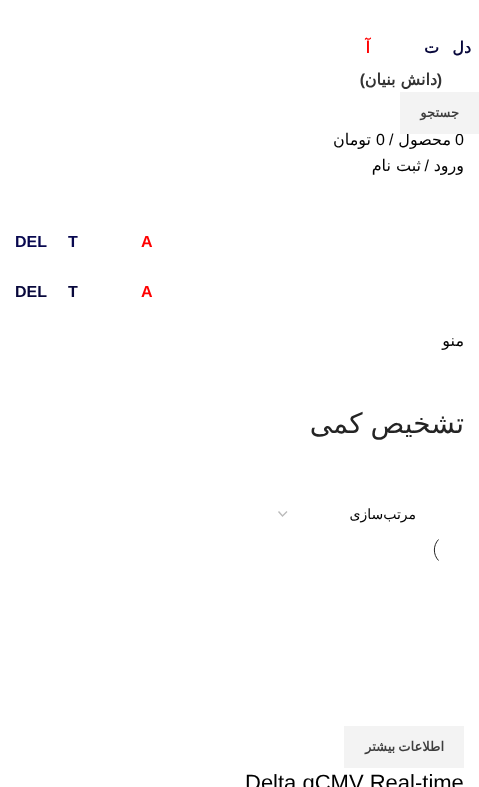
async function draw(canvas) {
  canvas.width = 479;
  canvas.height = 787;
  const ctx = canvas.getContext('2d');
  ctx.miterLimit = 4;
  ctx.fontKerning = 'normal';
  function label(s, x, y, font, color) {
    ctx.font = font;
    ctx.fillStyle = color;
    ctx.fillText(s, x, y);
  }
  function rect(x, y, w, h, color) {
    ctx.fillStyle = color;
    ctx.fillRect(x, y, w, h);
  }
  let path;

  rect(0, 0, 479, 787, '#fff');
  ctx.direction = 'rtl';
  label('دل', 471, 53, 'bold 16px DejaVu Sans', '#07073b');
  label('ت', 439, 53, 'bold 16px DejaVu Sans', '#07073b');
  label('آ', 370, 53, 'bold 16px DejaVu Sans', '#f00');
  label('(', 442, 85, 'bold 16px Liberation Sans', '#333');
  label('دانش بنيان', 437, 85, 'bold 16px DejaVu Sans', '#333');
  label(')', 365, 85, 'bold 16px Liberation Sans', '#333');
  ctx.direction = 'ltr';
  label('0', 455, 145, '16px Liberation Sans', '#000');
  ctx.direction = 'rtl';
  label('محصول', 451, 145, '16px DejaVu Sans', '#000');
  ctx.direction = 'ltr';
  label('/', 389, 145, '16px Liberation Sans', '#000');
  label('0', 376, 145, '16px Liberation Sans', '#000');
  ctx.direction = 'rtl';
  label('تومان', 371, 145, '16px DejaVu Sans', '#000');
  label('ورود', 464, 171, '16px DejaVu Sans', '#000');
  label('/', 429, 171, '16px Liberation Sans', '#000');
  label('ثبت نام', 421, 171, '16px DejaVu Sans', '#000');
  ctx.direction = 'ltr';
  label('A', 141, 247, 'bold 16px Liberation Sans', '#f00');
  label('T', 68, 247, 'bold 16px Liberation Sans', '#07074f');
  label('DEL', 15, 247, 'bold 16px Liberation Sans', '#07074f');
  label('A', 141, 297, 'bold 16px Liberation Sans', '#f00');
  label('T', 68, 297, 'bold 16px Liberation Sans', '#07073b');
  label('DEL', 15, 297, 'bold 16px Liberation Sans', '#07073b');
  ctx.direction = 'rtl';
  label('منو', 464, 346, '16px DejaVu Sans', '#000');
  ctx.wordSpacing = '-1px';
  label('تشخیص کمی', 464, 433, '28px DejaVu Sans', '#242424');
  path = new Path2D('M278.5 511.5L282.5 516L287 511.5');
  ctx.strokeStyle = '#bbb';
  ctx.lineWidth = 1.4;
  ctx.stroke(path);
  ctx.wordSpacing = '0px';
  label('مرتب‌سازی', 416, 519, '14px DejaVu Sans', '#000');
  path = new Path2D('M438.5 560.5C433 554.5 433 545.5 438.5 539.5');
  ctx.strokeStyle = '#242424';
  ctx.lineWidth = 1;
  ctx.stroke(path);
  rect(344, 726, 120, 42, '#f3f3f3');
  ctx.wordSpacing = '-1px';
  label('اطلاعات بیشتر', 444, 751, 'bold 13px DejaVu Sans', '#3e3e3e');
  ctx.wordSpacing = '0px';
  ctx.direction = 'ltr';
  label('Delta qCMV Real-time', 245, 790, '22px Liberation Sans', '#000');
  rect(400, 92, 79, 42, '#f3f3f3');
  ctx.direction = 'rtl';
  label('جستجو', 459, 117, 'bold 13px DejaVu Sans', '#3e3e3e');
}

draw(document.querySelector('canvas'));
